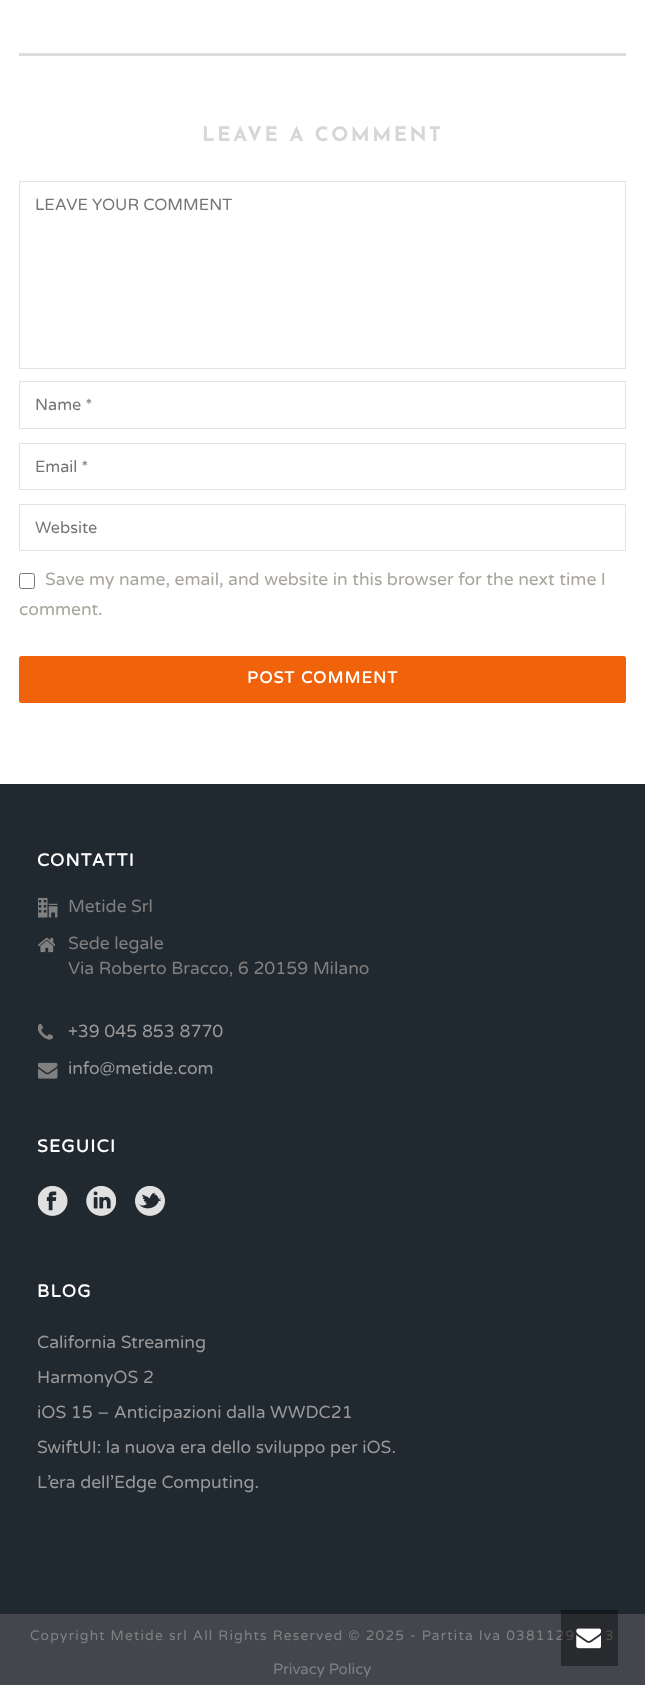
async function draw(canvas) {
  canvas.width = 645;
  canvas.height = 1685;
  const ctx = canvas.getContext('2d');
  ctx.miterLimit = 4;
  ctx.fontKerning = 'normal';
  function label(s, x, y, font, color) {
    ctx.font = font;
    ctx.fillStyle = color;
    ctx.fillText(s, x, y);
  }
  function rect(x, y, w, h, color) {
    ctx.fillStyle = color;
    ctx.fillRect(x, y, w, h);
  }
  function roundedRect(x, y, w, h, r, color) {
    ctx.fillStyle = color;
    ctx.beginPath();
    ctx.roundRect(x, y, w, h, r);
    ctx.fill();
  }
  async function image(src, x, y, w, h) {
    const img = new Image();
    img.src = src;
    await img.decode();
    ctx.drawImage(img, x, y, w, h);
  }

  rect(0, 0, 645, 1685, '#fff');
  rect(19, 53, 607, 3, '#ddd');
  ctx.letterSpacing = '2.5px';
  label('LEAVE A COMMENT', 202, 141, 'bold 20px Josefin Sans', '#d6d6d6');
  ctx.strokeStyle = '#e3e3e3';
  ctx.strokeRect(19.5, 181.5, 606, 187);
  ctx.letterSpacing = '0px';
  label('LEAVE YOUR COMMENT', 35, 210, '16.25px Varela Round', '#757575');
  ctx.strokeRect(19.5, 381.5, 606, 47);
  label('Name *', 35, 410, '16.25px Varela Round', '#757575');
  ctx.strokeRect(19.5, 443.5, 606, 46);
  label('Email *', 35, 472, '16.25px Varela Round', '#757575');
  ctx.strokeRect(19.5, 504.5, 606, 46);
  label('Website', 35, 533, '16.25px Varela Round', '#757575');
  ctx.beginPath();
  ctx.roundRect(19.5, 573.5, 15, 15, 2);
  ctx.strokeStyle = '#767676';
  ctx.stroke();
  label('Save my name, email, and website in this browser for the next time I', 45, 585, '17.5px Varela Round', '#a8a59c');
  label('comment.', 19, 615, '17.5px Varela Round', '#a8a59c');
  roundedRect(19, 656, 607, 47, 2.5, '#f0630b');
  ctx.letterSpacing = '1.25px';
  label('POST COMMENT', 247, 683, 'bold 16.25px Varela Round', '#fff');
  rect(0, 784, 645, 830, '#202830');
  label('CONTATTI', 37, 866, 'bold 17.5px Varela Round', '#fff');
  await image('assets/img1.png', 38, 898, 20, 20);
  ctx.letterSpacing = '0px';
  label('Metide Srl', 68, 912, '17.5px Varela Round', '#808080');
  await image('assets/img2.png', 38, 937, 17, 16);
  label('Sede legale', 68, 949, '17.5px Varela Round', '#808080');
  label('Via Roberto Bracco, 6 20159 Milano', 68, 974, '17.5px Varela Round', '#808080');
  await image('assets/img3.png', 38, 1024, 15, 16);
  label('+39 045 853 8770', 68, 1037, '17.5px Varela Round', '#999');
  await image('assets/img4.png', 38, 1062, 20, 17);
  label('info@metide.com', 68, 1074, '17.5px Varela Round', '#999');
  ctx.letterSpacing = '1.25px';
  label('SEGUICI', 37, 1152, 'bold 17.5px Varela Round', '#fff');
  await image('assets/img5.png', 38, 1186, 30, 30);
  await image('assets/img6.png', 86, 1186, 30, 30);
  await image('assets/img7.png', 135, 1186, 30, 30);
  label('BLOG', 37, 1297, 'bold 17.5px Varela Round', '#fff');
  ctx.letterSpacing = '0px';
  label('California Streaming', 37, 1348, '17.5px Varela Round', '#999');
  label('HarmonyOS 2', 37, 1383, '17.5px Varela Round', '#999');
  label('iOS 15 – Anticipazioni dalla WWDC21', 37, 1418, '17.5px Varela Round', '#999');
  label('SwiftUI: la nuova era dello sviluppo per iOS.', 37, 1453, '17.5px Varela Round', '#999');
  label('L’era dell’Edge Computing.', 37, 1488, '17.5px Varela Round', '#999');
  rect(0, 1614, 645, 71, '#43474d');
  ctx.letterSpacing = '1.25px';
  label('Copyright Metide srl All Rights Reserved © 2025 - Partita Iva 0381129', 30, 1640, '13.75px Varela Round', '#808080');
  label('3', 605, 1640, '13.75px Varela Round', '#808080');
  ctx.letterSpacing = '0px';
  label('Privacy Policy', 273, 1674, '15px Varela Round', '#808080');
  rect(561, 1610, 57, 56, '#00000066');
  await image('assets/img8.png', 576, 1628, 25, 21);
}

draw(document.querySelector('canvas'));
